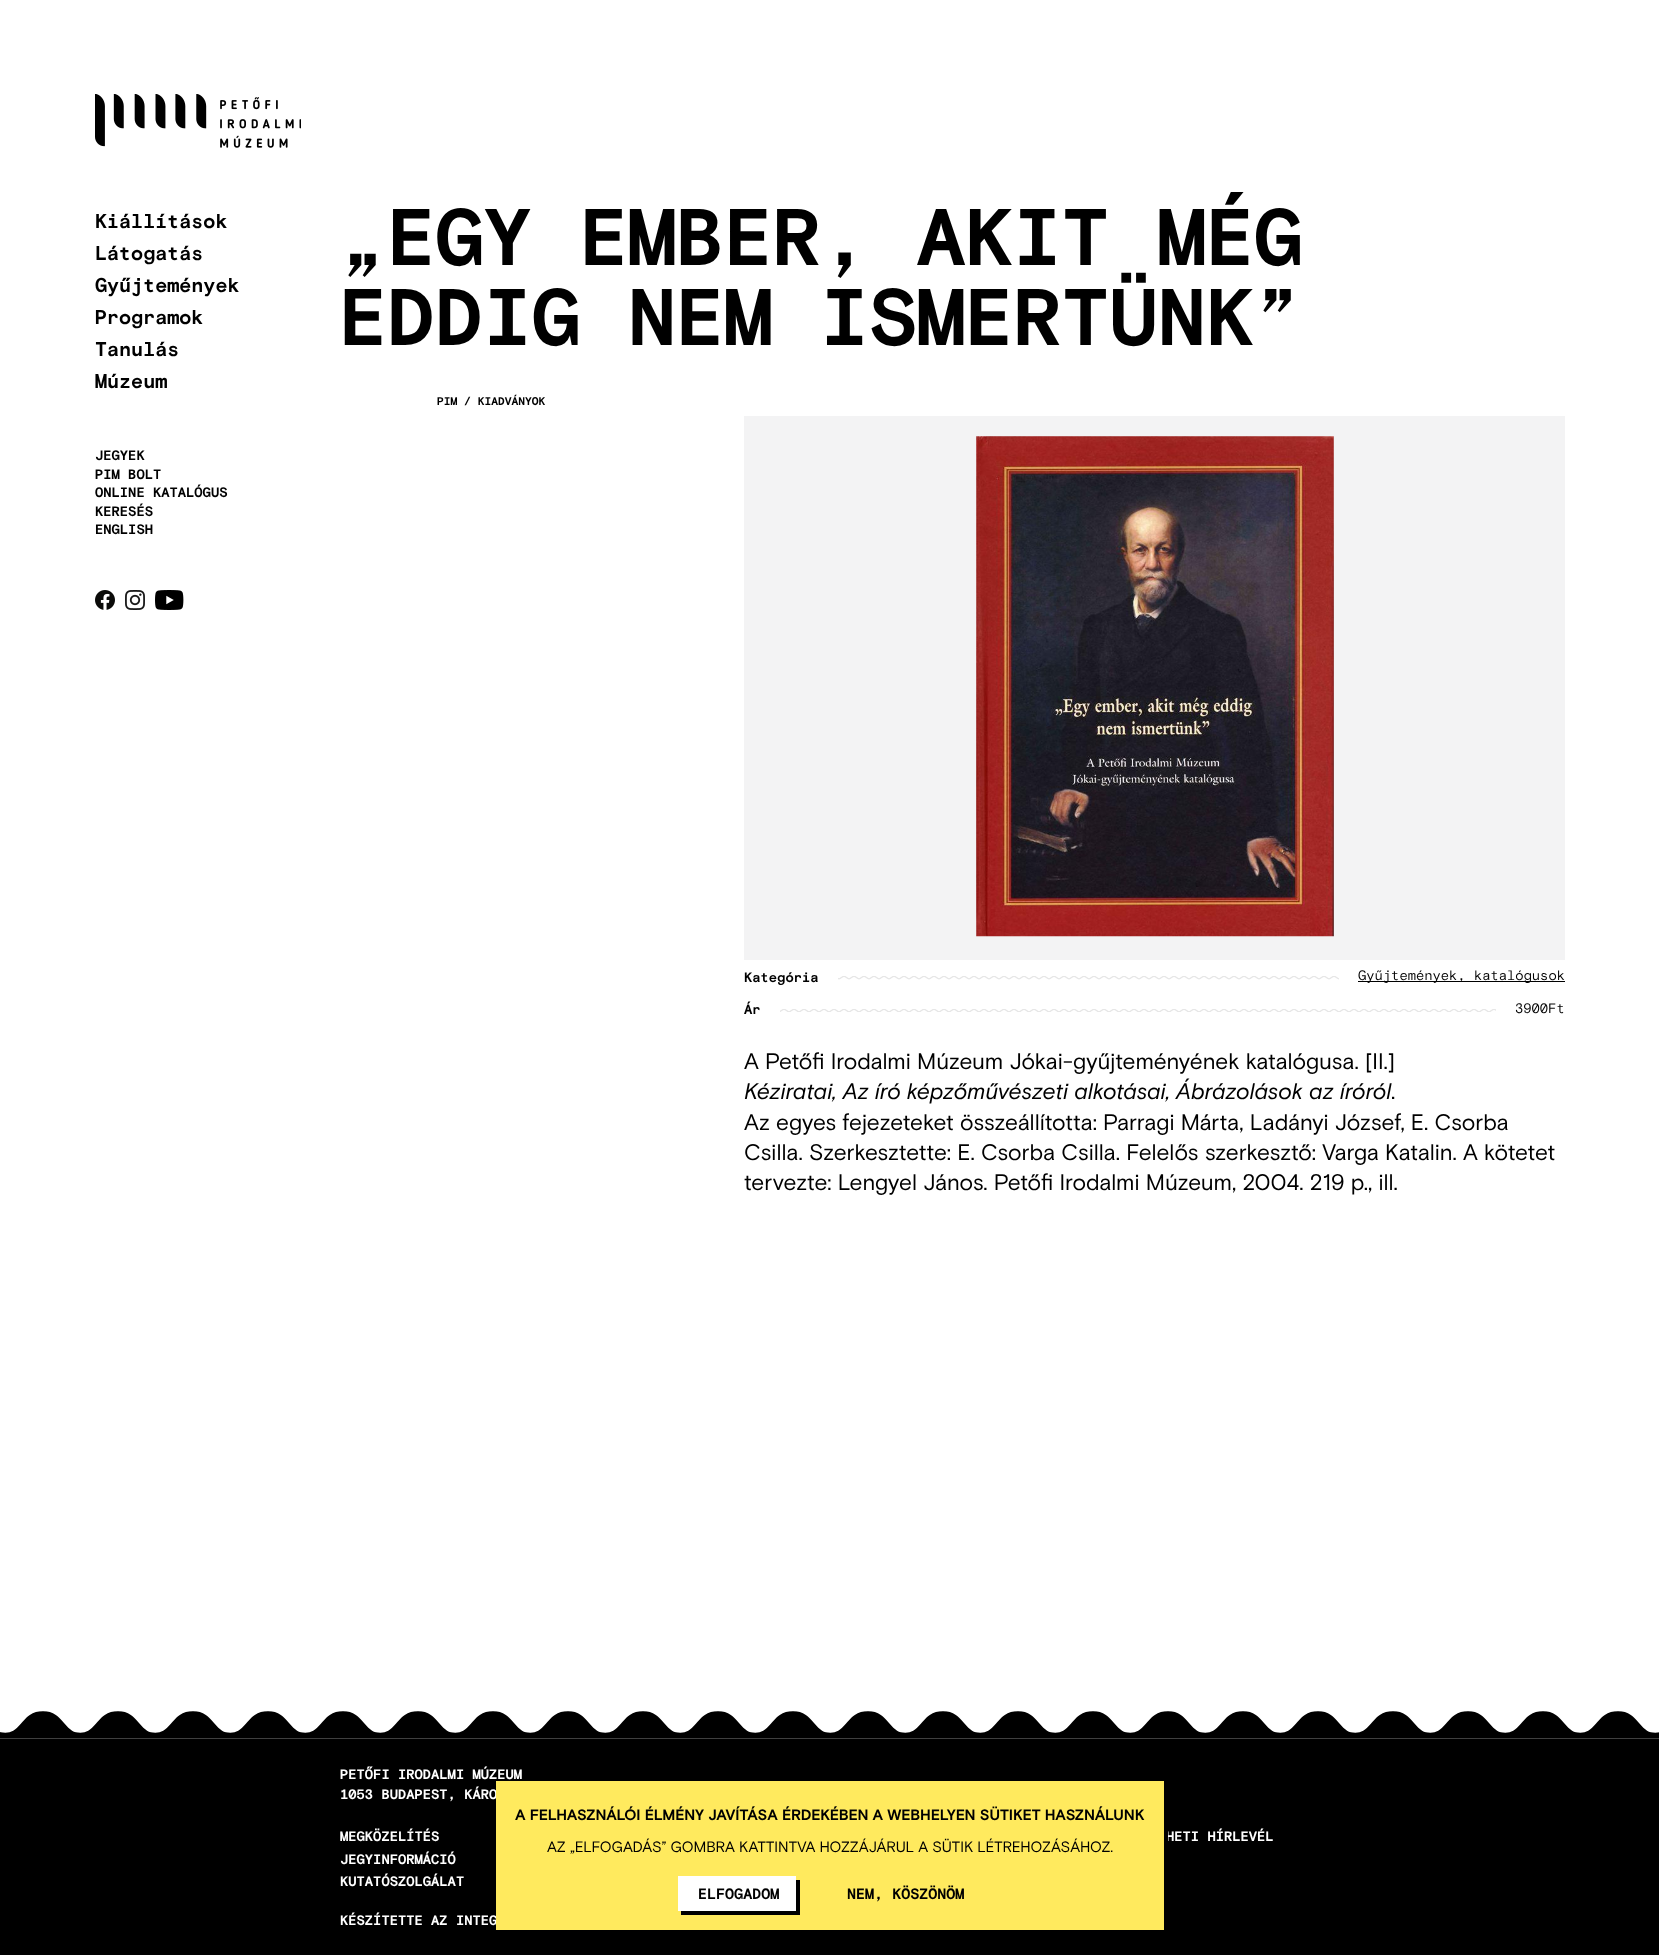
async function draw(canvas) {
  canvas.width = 1659;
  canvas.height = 1955;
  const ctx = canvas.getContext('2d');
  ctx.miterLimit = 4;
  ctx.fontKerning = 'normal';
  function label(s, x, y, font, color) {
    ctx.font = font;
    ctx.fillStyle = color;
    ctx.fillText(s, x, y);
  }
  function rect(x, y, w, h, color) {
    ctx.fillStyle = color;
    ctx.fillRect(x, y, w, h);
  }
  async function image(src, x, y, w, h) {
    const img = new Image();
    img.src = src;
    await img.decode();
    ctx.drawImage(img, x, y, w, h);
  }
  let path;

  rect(0, 0, 1659, 1955, '#fff');
  await image('assets/img1.png', 95, 94, 206, 54);
  label('Kiállítások', 95, 228, 'bold 20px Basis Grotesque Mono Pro', '#000');
  label('Látogatás', 95, 260, 'bold 20px Basis Grotesque Mono Pro', '#000');
  label('Gyűjtemények', 95, 292, 'bold 20px Basis Grotesque Mono Pro', '#000');
  label('Programok', 95, 324, 'bold 20px Basis Grotesque Mono Pro', '#000');
  label('Tanulás', 95, 356, 'bold 20px Basis Grotesque Mono Pro', '#000');
  label('Múzeum', 95, 388, 'bold 20px Basis Grotesque Mono Pro', '#000');
  label('JEGYEK', 95, 460, 'bold 13.75px Basis Grotesque Mono Pro', '#000');
  label('PIM BOLT', 95, 479, 'bold 13.75px Basis Grotesque Mono Pro', '#000');
  label('ONLINE KATALÓGUS', 95, 497, 'bold 13.75px Basis Grotesque Mono Pro', '#000');
  label('KERESÉS', 95, 516, 'bold 13.75px Basis Grotesque Mono Pro', '#000');
  label('ENGLISH', 95, 534, 'bold 13.75px Basis Grotesque Mono Pro', '#000');
  await image('assets/img2.png', 95, 590, 20, 20);
  await image('assets/img3.png', 125, 590, 20, 20);
  await image('assets/img4.png', 155, 590, 29, 20);
  label('„EGY EMBER, AKIT MÉG', 339, 265, 'bold 80px Basis Grotesque Mono Pro', '#000');
  label('EDDIG NEM ISMERTÜNK”', 339, 345, 'bold 80px Basis Grotesque Mono Pro', '#000');
  label('PIM / KIADVÁNYOK', 437, 405, 'bold 11.25px Basis Grotesque Mono Pro', '#000');
  rect(744, 416, 821, 544, '#f3f3f4');
  await image('assets/img5.png', 976, 436, 358, 501);
  label('Kategória', 744, 982, 'bold 13.75px Basis Grotesque Mono Pro', '#000');
  await image('assets/img6.png', 838, 976, 501, 4);
  rect(1358, 981, 207, 1, '#000');
  label('Gyűjtemények, katalógusok', 1358, 980, '100 13.75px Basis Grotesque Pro', '#000');
  label('Ár', 744, 1014, 'bold 13.75px Basis Grotesque Mono Pro', '#000');
  await image('assets/img7.png', 780, 1009, 716, 3);
  label('3900Ft', 1515, 1013, '100 13.75px Basis Grotesque Pro', '#000');
  label('A Petőfi Irodalmi Múzeum Jókai-gyűjteményének katalógusa. [II.]', 744, 1069, '22.5px Basis Grotesque Pro', '#000');
  label('Kéziratai, Az író képzőművészeti alkotásai, Ábrázolások az íróról', 744, 1099, 'italic 22.5px Basis Grotesque Pro', '#000');
  label('.', 1391, 1099, '22.5px Basis Grotesque Pro', '#000');
  label('Az egyes fejezeteket összeállította: Parragi Márta, Ladányi József, E. Csorba', 744, 1130, '22.5px Basis Grotesque Pro', '#000');
  label('Csilla. Szerkesztette: E. Csorba Csilla. Felelős szerkesztő: Varga Katalin. A kötetet', 744, 1160, '22.5px Basis Grotesque Pro', '#000');
  label('tervezte: Lengyel János. Petőfi Irodalmi Múzeum, 2004. 219 p., ill.', 744, 1190, '22.5px Basis Grotesque Pro', '#000');
  rect(0, 1739, 1659, 216, '#000');
  await image('assets/img8.png', 0, 1711, 1659, 28);
  label('PETŐFI IRODALMI MÚZEUM', 340, 1779, 'bold 13.75px Basis Grotesque Mono Pro', '#fff');
  label('1053 BUDAPEST, KÁRO', 340, 1799, 'bold 13.75px Basis Grotesque Mono Pro', '#fff');
  label('MEGKÖZELÍTÉS', 340, 1841, 'bold 13.75px Basis Grotesque Mono Pro', '#fff');
  label('HETI HÍRLEVÉL', 1166, 1841, 'bold 13.75px Basis Grotesque Mono Pro', '#fff');
  label('JEGYINFORMÁCIÓ', 340, 1864, 'bold 13.75px Basis Grotesque Mono Pro', '#fff');
  label('KUTATÓSZOLGÁLAT', 340, 1886, 'bold 13.75px Basis Grotesque Mono Pro', '#fff');
  label('KÉSZÍTETTE AZ INTEG', 340, 1925, 'bold 13.75px Basis Grotesque Mono Pro', '#fff');
  ctx.fillStyle = '#000';
  path = new Path2D('M500 1930V1934H1168V1785H1164V1930Z');
  ctx.fill(path);
  rect(496, 1781, 668, 149, '#ffea5e');
  label('A FELHASZNÁLÓI ÉLMÉNY JAVÍTÁSA ÉRDEKÉBEN A WEBHELYEN SÜTIKET HASZNÁLUNK', 515, 1820, 'bold 15px Basis Grotesque Pro', '#000');
  label('AZ „ELFOGADÁS” GOMBRA KATTINTVA HOZZÁJÁRUL A SÜTIK LÉTREHOZÁSÁHOZ.', 547, 1852, '15px Basis Grotesque Pro', '#000');
  path = new Path2D('M681 1911V1915H800V1880H796V1911Z');
  ctx.fill(path);
  rect(678, 1876, 118, 35, '#fff');
  label('ELFOGADOM', 698, 1899, 'bold 15px Basis Grotesque Mono Pro', '#000');
  label('NEM, KÖSZÖNÖM', 847, 1899, 'bold 15px Basis Grotesque Mono Pro', '#000');
}

draw(document.querySelector('canvas'));
